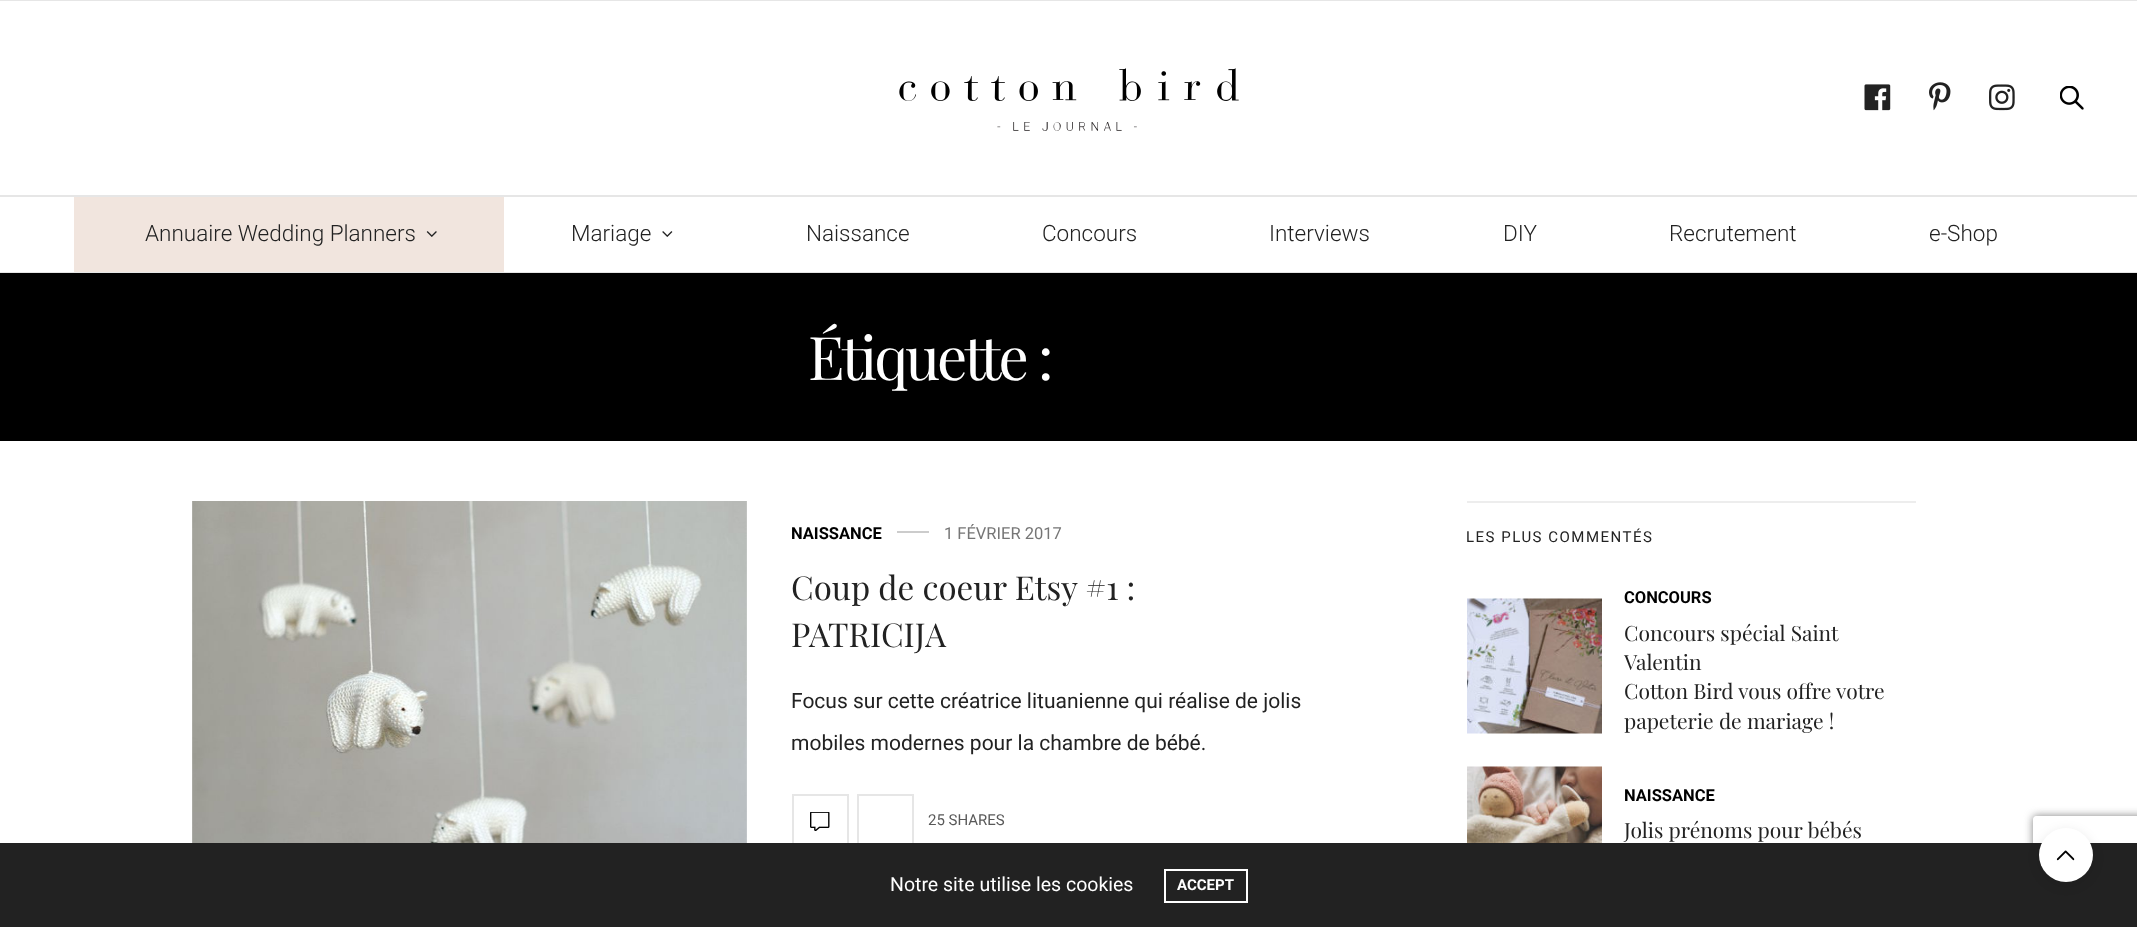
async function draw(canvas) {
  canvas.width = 2137;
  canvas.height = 927;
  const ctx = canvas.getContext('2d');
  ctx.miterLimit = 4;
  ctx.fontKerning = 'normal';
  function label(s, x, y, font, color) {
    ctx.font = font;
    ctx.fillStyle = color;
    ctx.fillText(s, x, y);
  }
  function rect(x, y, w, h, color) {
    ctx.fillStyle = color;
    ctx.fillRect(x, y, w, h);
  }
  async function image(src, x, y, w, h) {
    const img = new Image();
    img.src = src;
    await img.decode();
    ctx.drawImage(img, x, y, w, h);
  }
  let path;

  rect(0, 0, 2137, 927, '#fff');
  rect(0, 0, 2137, 1, '#e6e6e6');
  rect(0, 195, 2137, 2, '#e6e6e6');
  await image('assets/img1.png', 899, 68, 340, 63);
  await image('assets/img2.png', 1864, 84, 27, 27);
  await image('assets/img3.png', 1929, 82, 22, 29);
  await image('assets/img4.png', 1989, 84, 26, 27);
  await image('assets/img5.png', 2060, 86, 24, 24);
  rect(0, 272, 2137, 1, '#e6e6e6');
  rect(74, 197, 430, 75, '#f1e5de');
  label('Annuaire Wedding Planners', 145, 241, '300 22.5px Roboto', '#222');
  await image('assets/img6.png', 426, 231, 11, 6);
  label('Mariage', 571, 241, '300 22.5px Roboto', '#222');
  await image('assets/img7.png', 662, 231, 11, 6);
  label('Naissance', 806, 241, '300 22.5px Roboto', '#222');
  label('Concours', 1042, 241, '300 22.5px Roboto', '#222');
  label('Interviews', 1269, 241, '300 22.5px Roboto', '#222');
  label('DIY', 1503, 241, '300 22.5px Roboto', '#222');
  label('Recrutement', 1669, 241, '300 22.5px Roboto', '#222');
  label('e-Shop', 1929, 241, '300 22.5px Roboto', '#222');
  rect(0, 273, 2137, 168, '#000');
  ctx.letterSpacing = '-3px';
  label('Étiquette :', 808, 380, '60px Playfair Display', '#fff');
  await image('assets/img8.png', 192, 501, 555, 342);
  ctx.letterSpacing = '0px';
  label('NAISSANCE', 791, 539, 'bold 16.5px Roboto', '#000');
  rect(897, 531, 32, 2, '#ccc');
  label('1 FÉVRIER 2017', 944, 539, '16.5px Roboto', '#767676');
  label('Coup de coeur Etsy #1 :', 791, 600, '33px Playfair Display', '#222');
  label('PATRICIJA', 791, 647, '33px Playfair Display', '#222');
  label('Focus sur cette créatrice lituanienne qui réalise de jolis', 791, 708, '21px Roboto', '#222');
  label('mobiles modernes pour la chambre de bébé.', 791, 750, '21px Roboto', '#222');
  ctx.strokeStyle = '#e6e6e6';
  ctx.lineWidth = 2;
  ctx.strokeRect(793, 795, 55, 52);
  await image('assets/img9.png', 810, 812, 20, 19);
  ctx.strokeRect(858, 795, 55, 52);
  label('25 SHARES', 928, 825, '15px Roboto', '#595959');
  rect(1467, 501, 449, 2, '#ededed');
  ctx.letterSpacing = '1.5px';
  label('LES PLUS COMMENTÉS', 1466, 542, '15px Roboto', '#222');
  await image('assets/img10.png', 1467, 598, 135, 136);
  ctx.letterSpacing = '0px';
  label('CONCOURS', 1624, 603, 'bold 16.5px Roboto', '#000');
  label('Concours spécial Saint', 1624, 641, '21px Playfair Display', '#222');
  label('Valentin', 1624, 670, '21px Playfair Display', '#222');
  label('Cotton Bird vous offre votre', 1624, 699, '21px Playfair Display', '#222');
  label('papeterie de mariage !', 1624, 729, '21px Playfair Display', '#222');
  await image('assets/img11.png', 1467, 766, 135, 77);
  label('NAISSANCE', 1624, 801, 'bold 16.5px Roboto', '#000');
  label('Jolis prénoms pour bébés', 1624, 838, '21px Playfair Display', '#222');
  ctx.save();
  path = new Path2D('M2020 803H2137V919H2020ZM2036 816H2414C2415.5 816 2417 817.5 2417 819V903C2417 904.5 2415.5 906 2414 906H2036C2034.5 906 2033 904.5 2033 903V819C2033 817.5 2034.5 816 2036 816Z');
  ctx.clip(path, 'evenodd');
  ctx.fillStyle = '#808080';
  ctx.filter = 'blur(4px)';
  ctx.beginPath();
  ctx.roundRect(2033, 816, 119, 90, 3);
  ctx.fill();
  ctx.filter = 'none';
  ctx.restore();
  rect(0, 843, 2137, 84, '#222');
  label('Notre site utilise les cookies', 890, 891, '19.5px Roboto', '#fff');
  ctx.strokeStyle = '#fff';
  ctx.strokeRect(1165, 870, 82, 32);
  label('ACCEPT', 1177, 890, 'bold 15px Roboto', '#fff');
  ctx.fillStyle = '#0000001a';
  ctx.filter = 'blur(6px)';
  ctx.beginPath();
  ctx.roundRect(2039, 831, 54, 54, 27);
  ctx.fill();
  ctx.filter = 'none';
  ctx.fillStyle = '#fff';
  ctx.beginPath();
  ctx.arc(2066, 855, 27, 0, 2 * Math.PI);
  ctx.fill();
  await image('assets/img12.png', 2056, 850, 19, 11);
}

draw(document.querySelector('canvas'));
